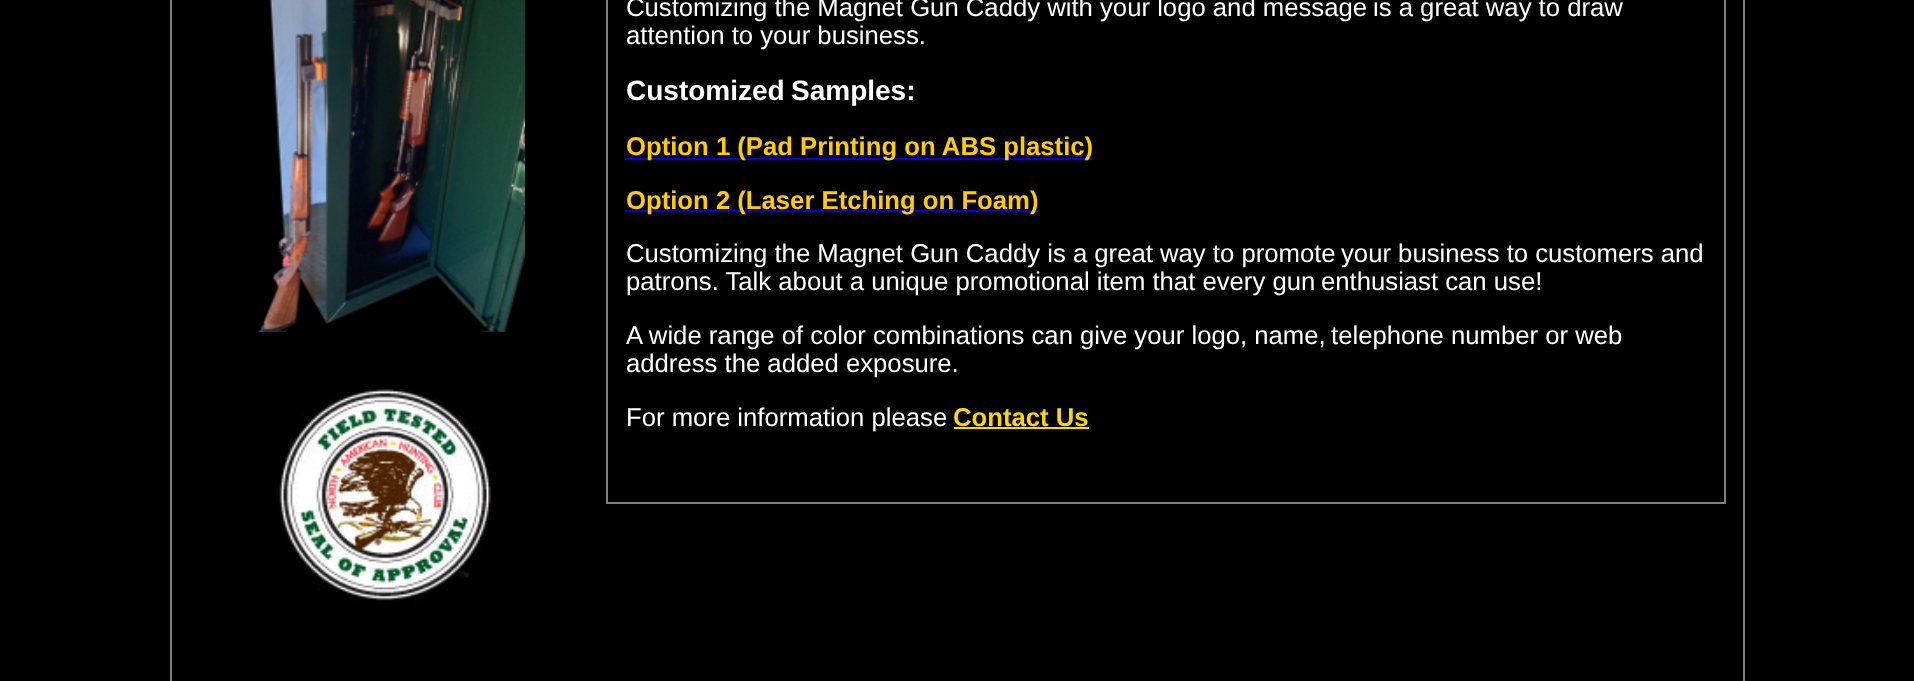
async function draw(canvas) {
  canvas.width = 1914;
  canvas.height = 681;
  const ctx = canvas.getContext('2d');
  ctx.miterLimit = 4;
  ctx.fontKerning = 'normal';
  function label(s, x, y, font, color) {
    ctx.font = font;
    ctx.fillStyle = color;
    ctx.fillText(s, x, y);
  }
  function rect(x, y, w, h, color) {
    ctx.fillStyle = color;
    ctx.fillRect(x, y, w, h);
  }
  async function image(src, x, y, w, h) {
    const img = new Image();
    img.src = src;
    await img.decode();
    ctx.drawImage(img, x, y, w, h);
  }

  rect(0, 0, 1914, 681, '#000');
  ctx.strokeStyle = '#808080';
  ctx.lineWidth = 2;
  ctx.strokeRect(171, -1, 1573, 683);
  await image('assets/img1.png', 257, 0, 268, 332);
  await image('assets/img2.png', 277, 387, 216, 216);
  rect(1724, 0, 2, 504, '#808080');
  rect(606, 502, 1120, 2, '#808080');
  rect(606, 0, 2, 504, '#808080');
  label('Customizing the Magnet Gun Caddy with your logo and message', 626, 16, '25.7px Liberation Sans', '#fff');
  label('is a great way to draw', 1373, 16, '25.7px Liberation Sans', '#fff');
  label('attention to your business.', 626, 44, '25.7px Liberation Sans', '#fff');
  label('Customized', 626, 100, 'bold 28px Liberation Sans', '#fff');
  label('Samples:', 791, 100, 'bold 28px Liberation Sans', '#fff');
  rect(625, 158, 467, 2, '#00e');
  label('Option 1 (Pad Printing on ABS plastic)', 626, 155, 'bold 25.7px Liberation Sans', '#fc0');
  rect(625, 210, 413, 2, '#00e');
  label('Option 2 (Laser Etching on Foam)', 626, 209, 'bold 25.7px Liberation Sans', '#fc0');
  label('Customizing the Magnet Gun Caddy is a great way to promote', 626, 262, '25.7px Liberation Sans', '#fff');
  label('your business to customers and', 1341, 262, '25.7px Liberation Sans', '#fff');
  label('patrons. Talk about a unique promotional item that every gun', 626, 290, '25.7px Liberation Sans', '#fff');
  label('enthusiast can use!', 1321, 290, '25.7px Liberation Sans', '#fff');
  label('A wide range of color combinations can give your logo, name,', 626, 344, '25.7px Liberation Sans', '#fff');
  label('telephone number or web', 1331, 344, '25.7px Liberation Sans', '#fff');
  label('address the added exposure.', 626, 372, '25.7px Liberation Sans', '#fff');
  label('For more information please', 626, 426, '25.7px Liberation Sans', '#fff');
  label('Contact Us', 953, 426, 'bold 25.7px Liberation Sans', '#ffd700');
  rect(954, 427, 135, 2, '#ffd700');
}

draw(document.querySelector('canvas'));
